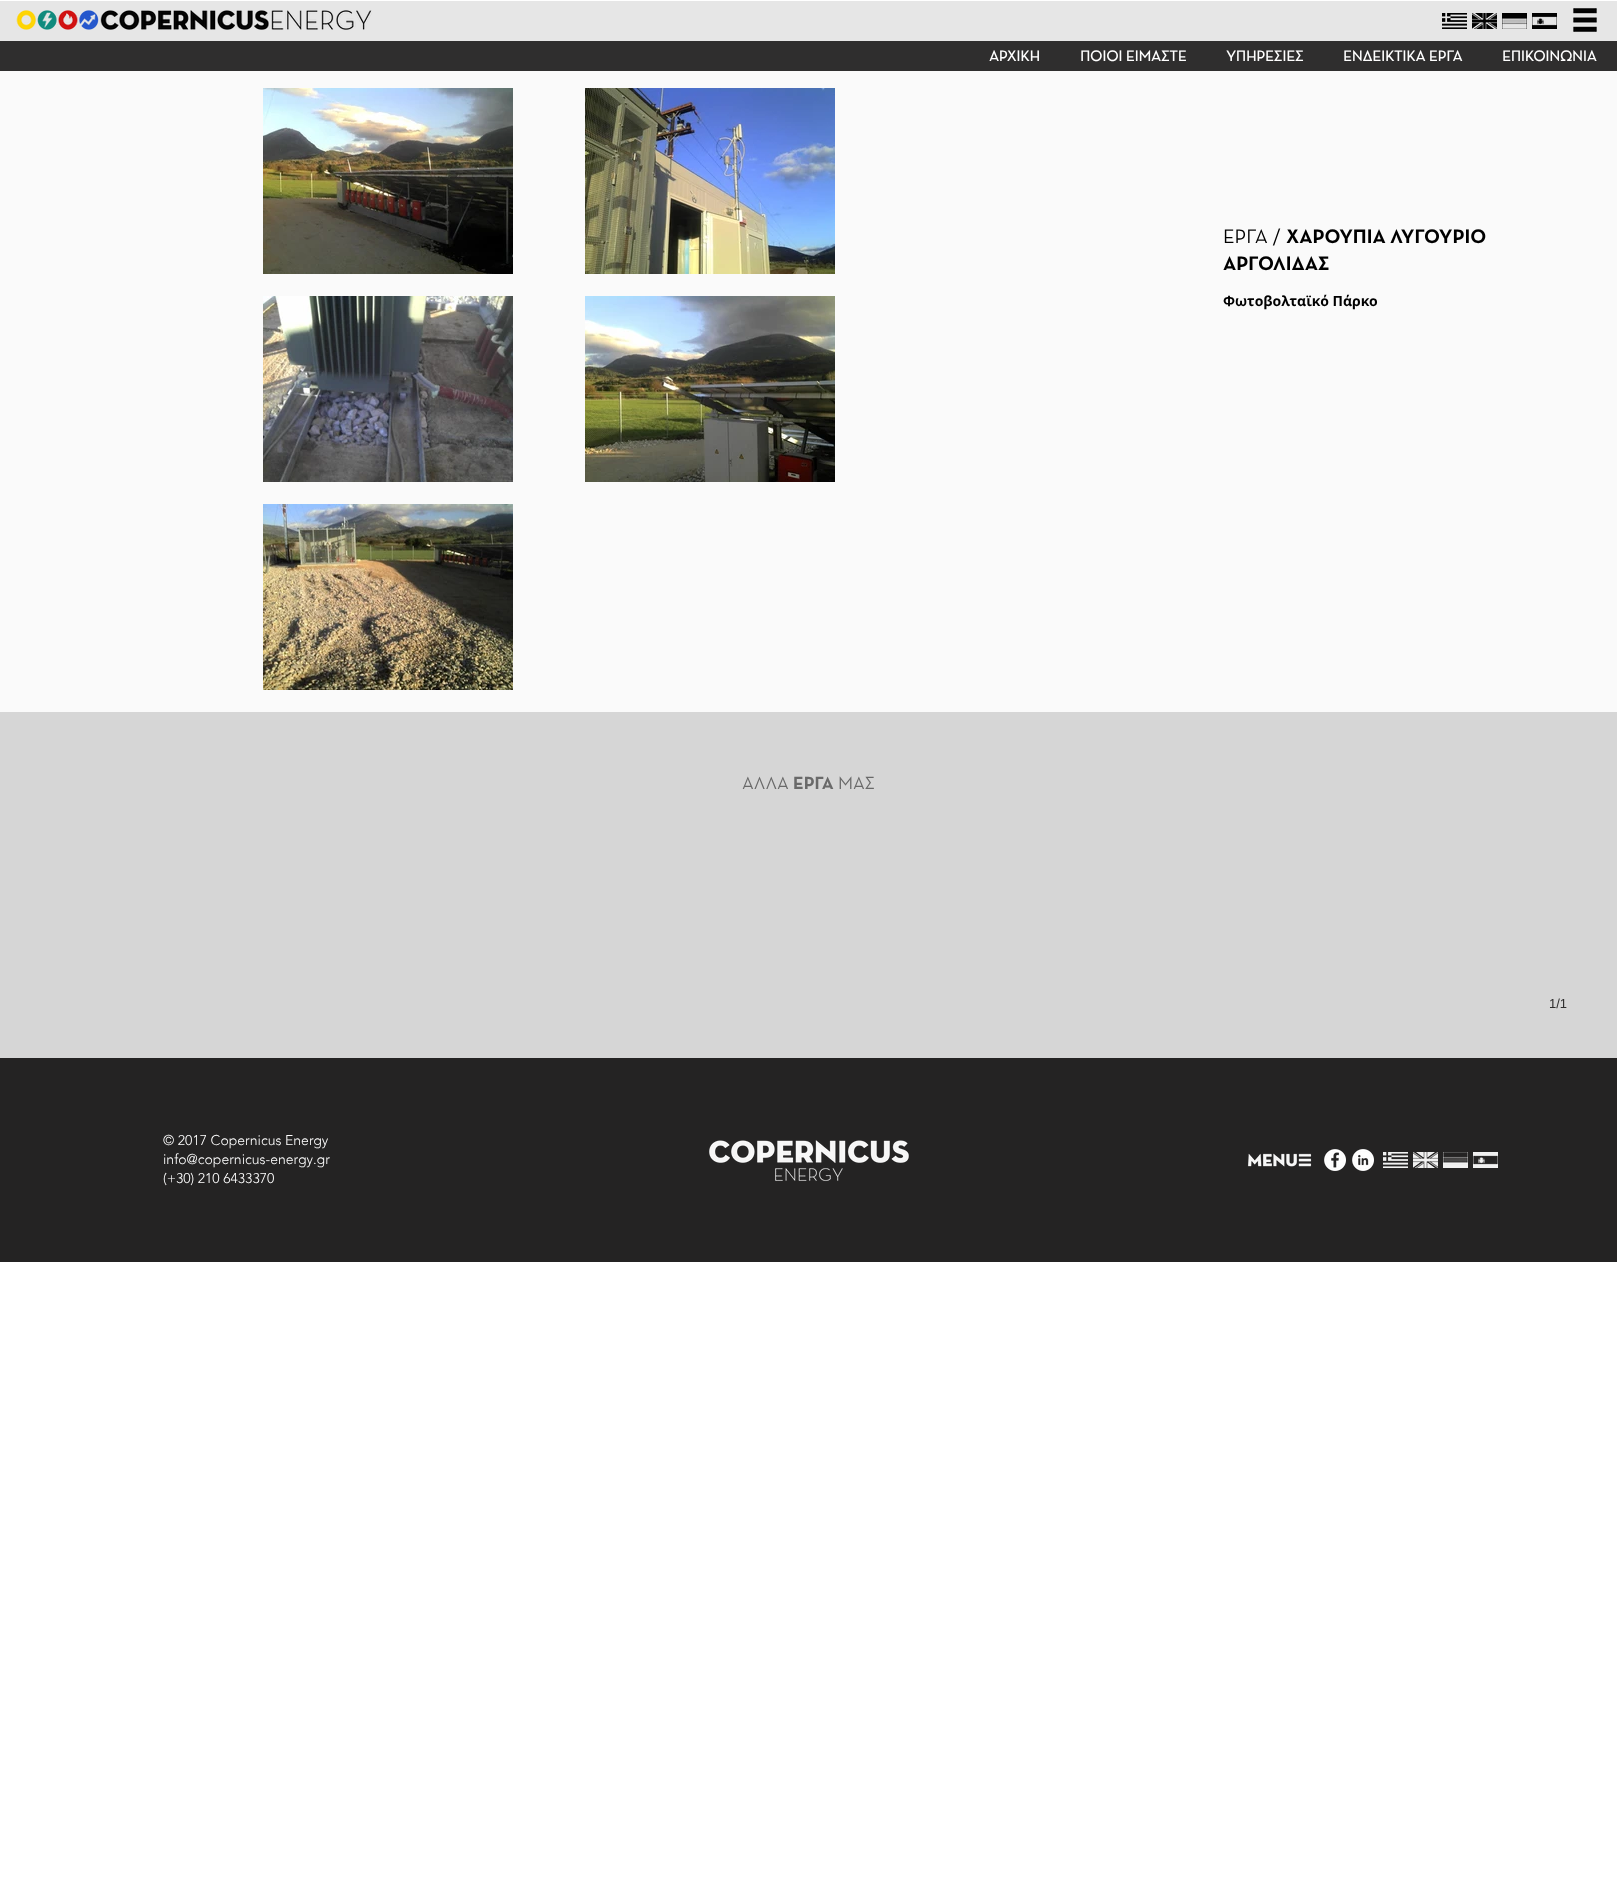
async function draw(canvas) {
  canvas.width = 1617;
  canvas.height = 1898;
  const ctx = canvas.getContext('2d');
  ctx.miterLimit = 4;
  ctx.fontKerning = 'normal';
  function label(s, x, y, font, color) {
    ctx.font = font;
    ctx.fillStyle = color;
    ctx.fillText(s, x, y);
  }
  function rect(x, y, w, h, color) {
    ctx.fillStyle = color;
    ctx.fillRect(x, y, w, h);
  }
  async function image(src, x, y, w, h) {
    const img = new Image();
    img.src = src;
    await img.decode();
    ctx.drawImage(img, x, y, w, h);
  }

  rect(0, 0, 1617, 1898, '#fff');
  rect(0, 1, 1617, 40, '#e6e6e6');
  await image('assets/img1.png', 16, 10, 356, 20);
  await image('assets/img2.png', 1442, 13, 25, 16);
  await image('assets/img3.png', 1472, 13, 25, 16);
  await image('assets/img4.png', 1502, 13, 25, 16);
  await image('assets/img5.png', 1532, 13, 25, 16);
  await image('assets/img6.png', 1573, 8, 24, 24);
  rect(0, 41, 1617, 30, '#2f2e2e');
  label('ΑΡΧΙΚΗ', 989, 61, 'bold 15px "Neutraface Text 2"', '#fff');
  label('ΠΟΙΟΙ ΕΙΜΑΣΤΕ', 1080, 61, 'bold 15px "Neutraface Text 2"', '#fff');
  label('ΥΠΗΡΕΣΙΕΣ', 1226, 61, 'bold 15px "Neutraface Text 2"', '#fff');
  label('ΕΝΔΕΙΚΤΙΚΑ ΕΡΓΑ', 1343, 61, 'bold 15px "Neutraface Text 2"', '#fff');
  label('ΕΠΙΚΟΙΝΩΝΙΑ', 1502, 61, 'bold 15px "Neutraface Text 2"', '#fff');
  rect(0, 71, 1617, 641, '#fafafa');
  await image('assets/img7.png', 263, 88, 250, 186);
  await image('assets/img8.png', 585, 88, 250, 186);
  await image('assets/img9.png', 263, 296, 250, 186);
  await image('assets/img10.png', 585, 296, 250, 186);
  await image('assets/img11.png', 263, 504, 250, 186);
  label('ΕΡΓΑ /', 1223, 243, '20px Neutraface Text', '#000');
  label('ΧΑΡΟΥΠΙΑ ΛΥΓΟΥΡΙΟ', 1286, 243, 'bold 20px Neutraface Text', '#000');
  label('ΑΡΓΟΛΙΔΑΣ', 1223, 270, 'bold 20px Neutraface Text', '#000');
  label('Φωτοβολταϊκό Πάρκο', 1223, 306, 'bold 14px Open Sans', '#000');
  rect(0, 712, 1617, 346, '#d6d6d6');
  label('ΑΛΛΑ', 742, 789, '18px Neutraface Text', '#696969');
  label('ΕΡΓΑ', 793, 789, 'bold 18px Neutraface Text', '#696969');
  label('ΜΑΣ', 838, 789, '18px Neutraface Text', '#696969');
  label('1/1', 1549, 1008, '13px Liberation Sans', '#2f2e2e');
  rect(0, 1058, 1617, 204, '#242323');
  label('© 2017 Copernicus Energy', 163, 1145, '300 14px "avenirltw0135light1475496"', '#fff');
  label('info@copernicus-energy.gr', 163, 1164, '300 14px "avenirltw0135light1475496"', '#fff');
  label('(+30) 210 6433370', 163, 1183, '300 14px "avenirltw0135light1475496"', '#fff');
  await image('assets/img12.png', 709, 1140, 200, 42);
  await image('assets/img13.png', 1247, 1153, 65, 14);
  await image('assets/img14.png', 1324, 1149, 22, 22);
  await image('assets/img15.png', 1352, 1149, 22, 22);
  await image('assets/img16.png', 1383, 1152, 25, 16);
  await image('assets/img17.png', 1413, 1152, 25, 16);
  await image('assets/img18.png', 1443, 1152, 25, 16);
  await image('assets/img19.png', 1473, 1152, 25, 16);
}

draw(document.querySelector('canvas'));
